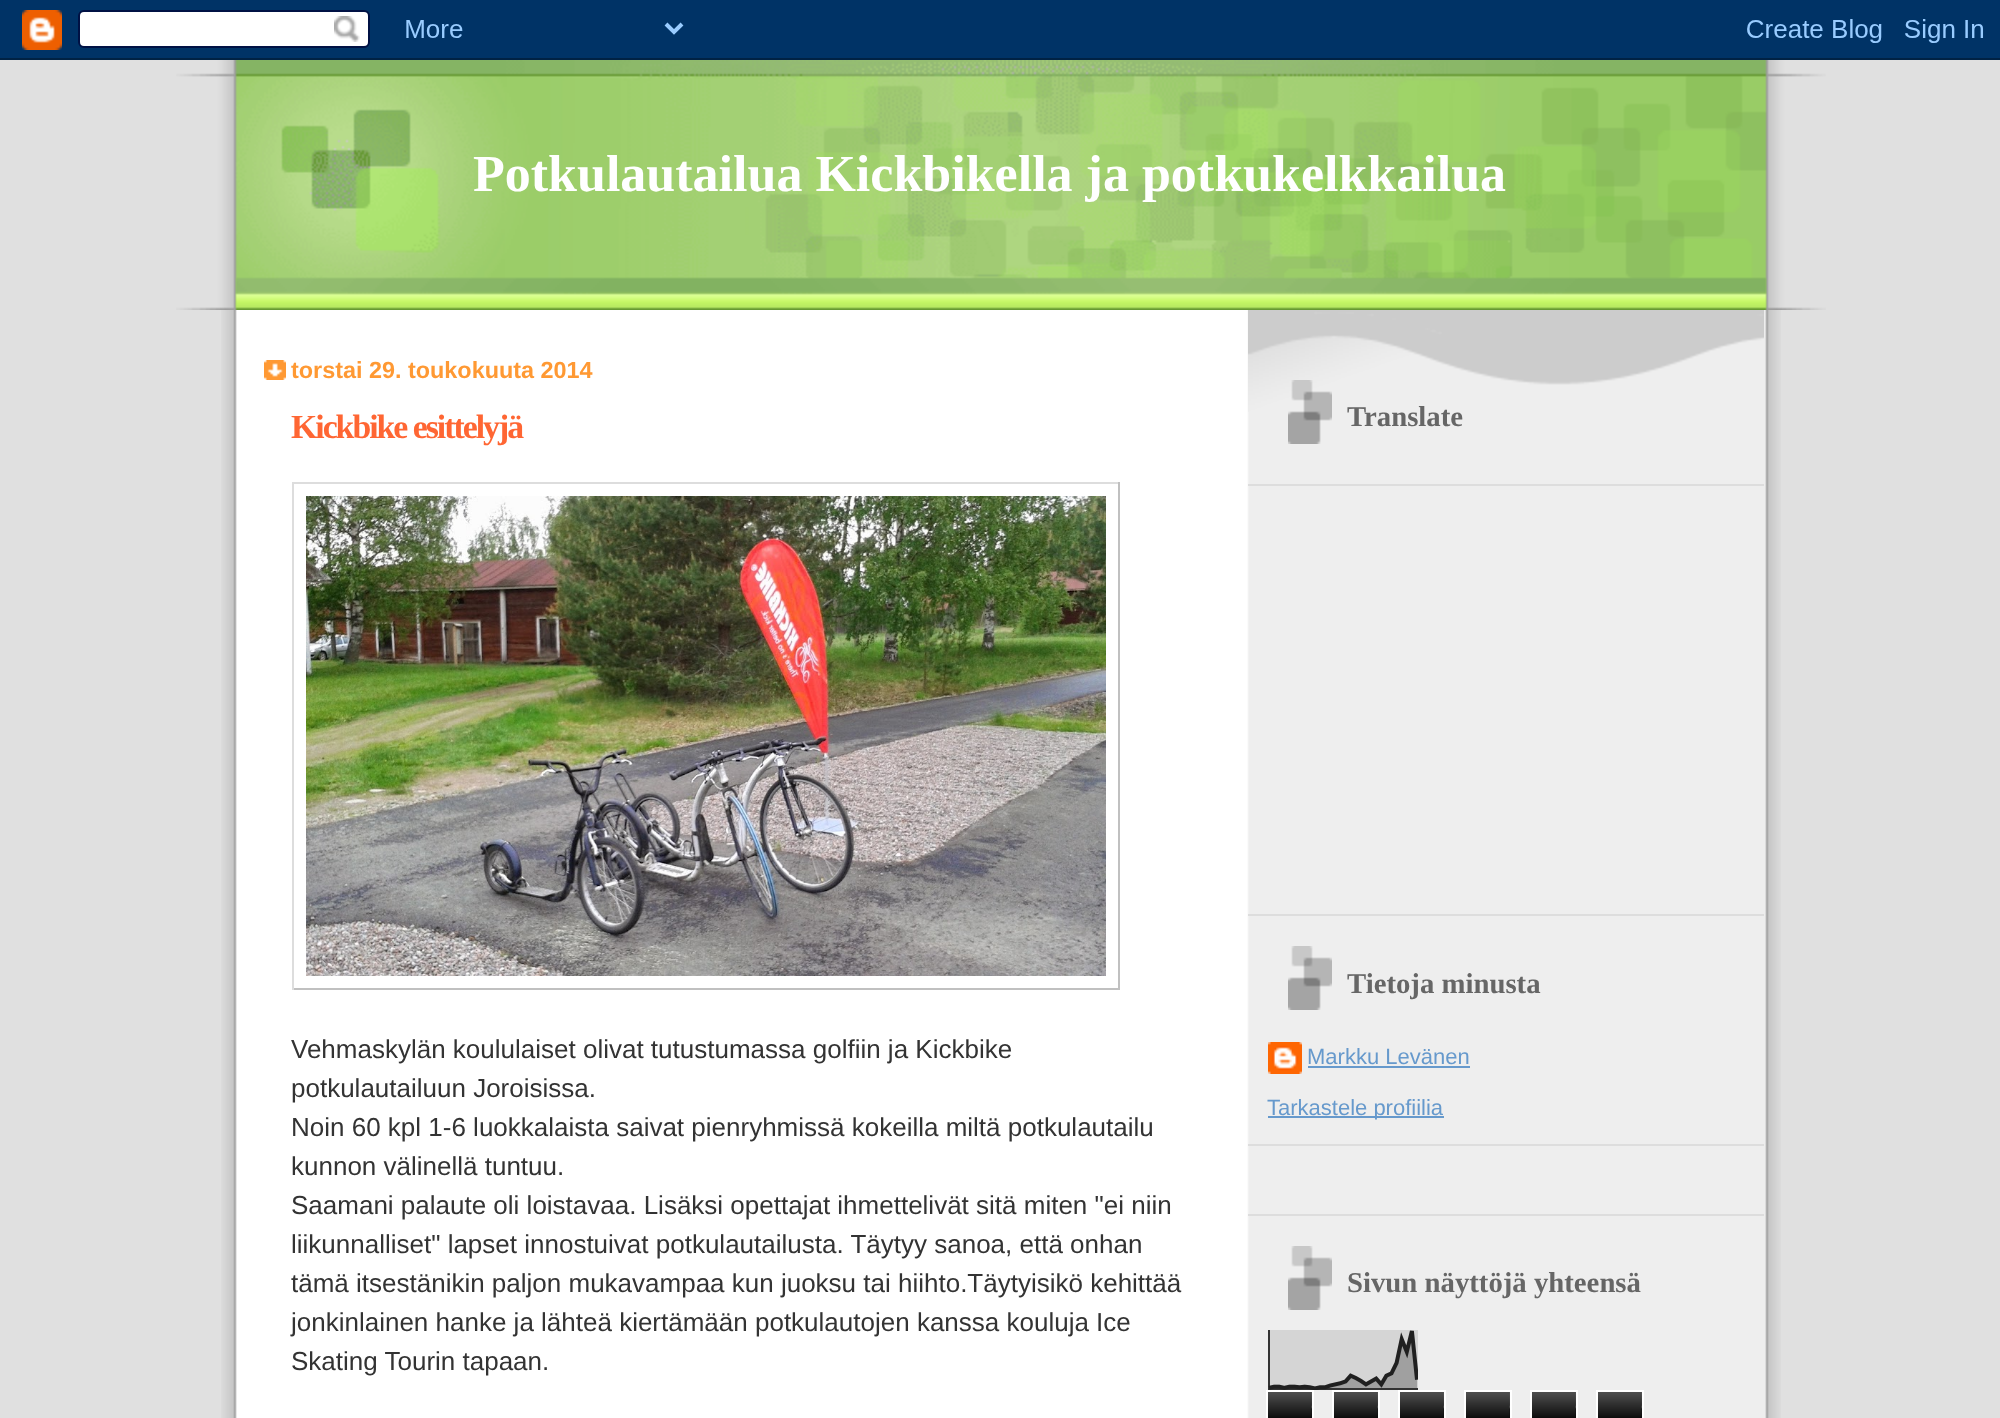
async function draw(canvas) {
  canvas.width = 2000;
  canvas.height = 1418;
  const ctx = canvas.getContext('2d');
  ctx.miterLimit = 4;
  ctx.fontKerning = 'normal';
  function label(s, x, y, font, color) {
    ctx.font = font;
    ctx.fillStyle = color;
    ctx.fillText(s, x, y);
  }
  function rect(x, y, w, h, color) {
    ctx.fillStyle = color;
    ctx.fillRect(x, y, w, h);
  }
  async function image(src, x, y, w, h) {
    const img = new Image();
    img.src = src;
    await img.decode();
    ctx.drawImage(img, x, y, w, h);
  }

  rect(0, 0, 2000, 1418, '#e0e0e0');
  await image('assets/img1.png', 0, 0, 2000, 60);
  await image('assets/img2.png', 221, 310, 1560, 1108);
  await image('assets/img3.png', 176, 60, 1650, 249);
  await image('assets/img4.png', 176, 277, 1650, 33);
  label('Potkulautailua Kickbikella ja potkukelkkailua', 473, 191, 'bold 52px Liberation Serif', '#fff');
  await image('assets/img5.png', 264, 360, 22, 20);
  label('torstai 29. toukokuuta 2014', 291, 378, 'bold 23.4px Liberation Sans', '#f93');
  ctx.letterSpacing = '-2px';
  label('Kickbike esittelyjä', 291, 438, 'bold 33.75px Liberation Serif', '#f63');
  rect(292, 482, 828, 2, '#ddd');
  rect(1118, 482, 2, 508, '#c0c0c0');
  rect(292, 988, 828, 2, '#c0c0c0');
  rect(292, 482, 2, 508, '#ddd');
  await image('assets/img6.png', 306, 496, 800, 480);
  ctx.letterSpacing = '0px';
  label('Vehmaskylän koululaiset olivat tutustumassa golfiin ja Kickbike', 291, 1058, '26px Liberation Sans', '#333');
  label('potkulautailuun Joroisissa.', 291, 1097, '26px Liberation Sans', '#333');
  label('Noin 60 kpl 1-6 luokkalaista saivat pienryhmissä kokeilla miltä potkulautailu', 291, 1136, '26px Liberation Sans', '#333');
  label('kunnon välinellä tuntuu.', 291, 1175, '26px Liberation Sans', '#333');
  label('Saamani palaute oli loistavaa. Lisäksi opettajat ihmettelivät sitä miten "ei niin', 291, 1214, '26px Liberation Sans', '#333');
  label('liikunnalliset" lapset innostuivat potkulautailusta. Täytyy sanoa, että onhan', 291, 1253, '26px Liberation Sans', '#333');
  label('tämä itsestänikin paljon mukavampaa kun juoksu tai hiihto.Täytyisikö kehittää', 291, 1292, '26px Liberation Sans', '#333');
  label('jonkinlainen hanke ja lähteä kiertämään potkulautojen kanssa kouluja Ice', 291, 1331, '26px Liberation Sans', '#333');
  label('Skating Tourin tapaan.', 291, 1370, '26px Liberation Sans', '#333');
  await image('assets/img7.png', 1248, 310, 516, 102);
  rect(1248, 484, 516, 2, '#ddd');
  await image('assets/img8.png', 1288, 380, 44, 64);
  label('Translate', 1347, 426, 'bold 28.75px Liberation Serif', '#666');
  rect(1248, 914, 516, 2, '#ddd');
  rect(1248, 1144, 516, 2, '#ddd');
  await image('assets/img9.png', 1288, 946, 44, 64);
  label('Tietoja minusta', 1347, 993, 'bold 28.75px Liberation Serif', '#666');
  await image('assets/img10.png', 1268, 1042, 34, 32);
  label('Markku Levänen', 1307, 1064, '22px Liberation Sans', '#69c');
  rect(1308, 1066, 162, 2, '#69c');
  rect(1268, 1116, 176, 2, '#69c');
  label('Tarkastele profiilia', 1267, 1115, '22px Liberation Sans', '#69c');
  rect(1248, 1214, 516, 2, '#ddd');
  await image('assets/img9.png', 1288, 1246, 44, 64);
  label('Sivun näyttöjä yhteensä', 1347, 1292, 'bold 28.75px Liberation Serif', '#666');
  await image('assets/img11.png', 1268, 1330, 150, 60);
  await image('assets/img12.png', 1268, 1392, 44, 26);
  ctx.strokeStyle = '#fff';
  ctx.lineWidth = 2;
  ctx.strokeRect(1267, 1391, 46, 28);
  await image('assets/img12.png', 1334, 1392, 44, 26);
  ctx.strokeRect(1333, 1391, 46, 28);
  await image('assets/img12.png', 1400, 1392, 44, 26);
  ctx.strokeRect(1399, 1391, 46, 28);
  await image('assets/img12.png', 1466, 1392, 44, 26);
  ctx.strokeRect(1465, 1391, 46, 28);
  await image('assets/img12.png', 1532, 1392, 44, 26);
  ctx.strokeRect(1531, 1391, 46, 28);
  await image('assets/img12.png', 1598, 1392, 44, 26);
  ctx.strokeRect(1597, 1391, 46, 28);
}

draw(document.querySelector('canvas'));
